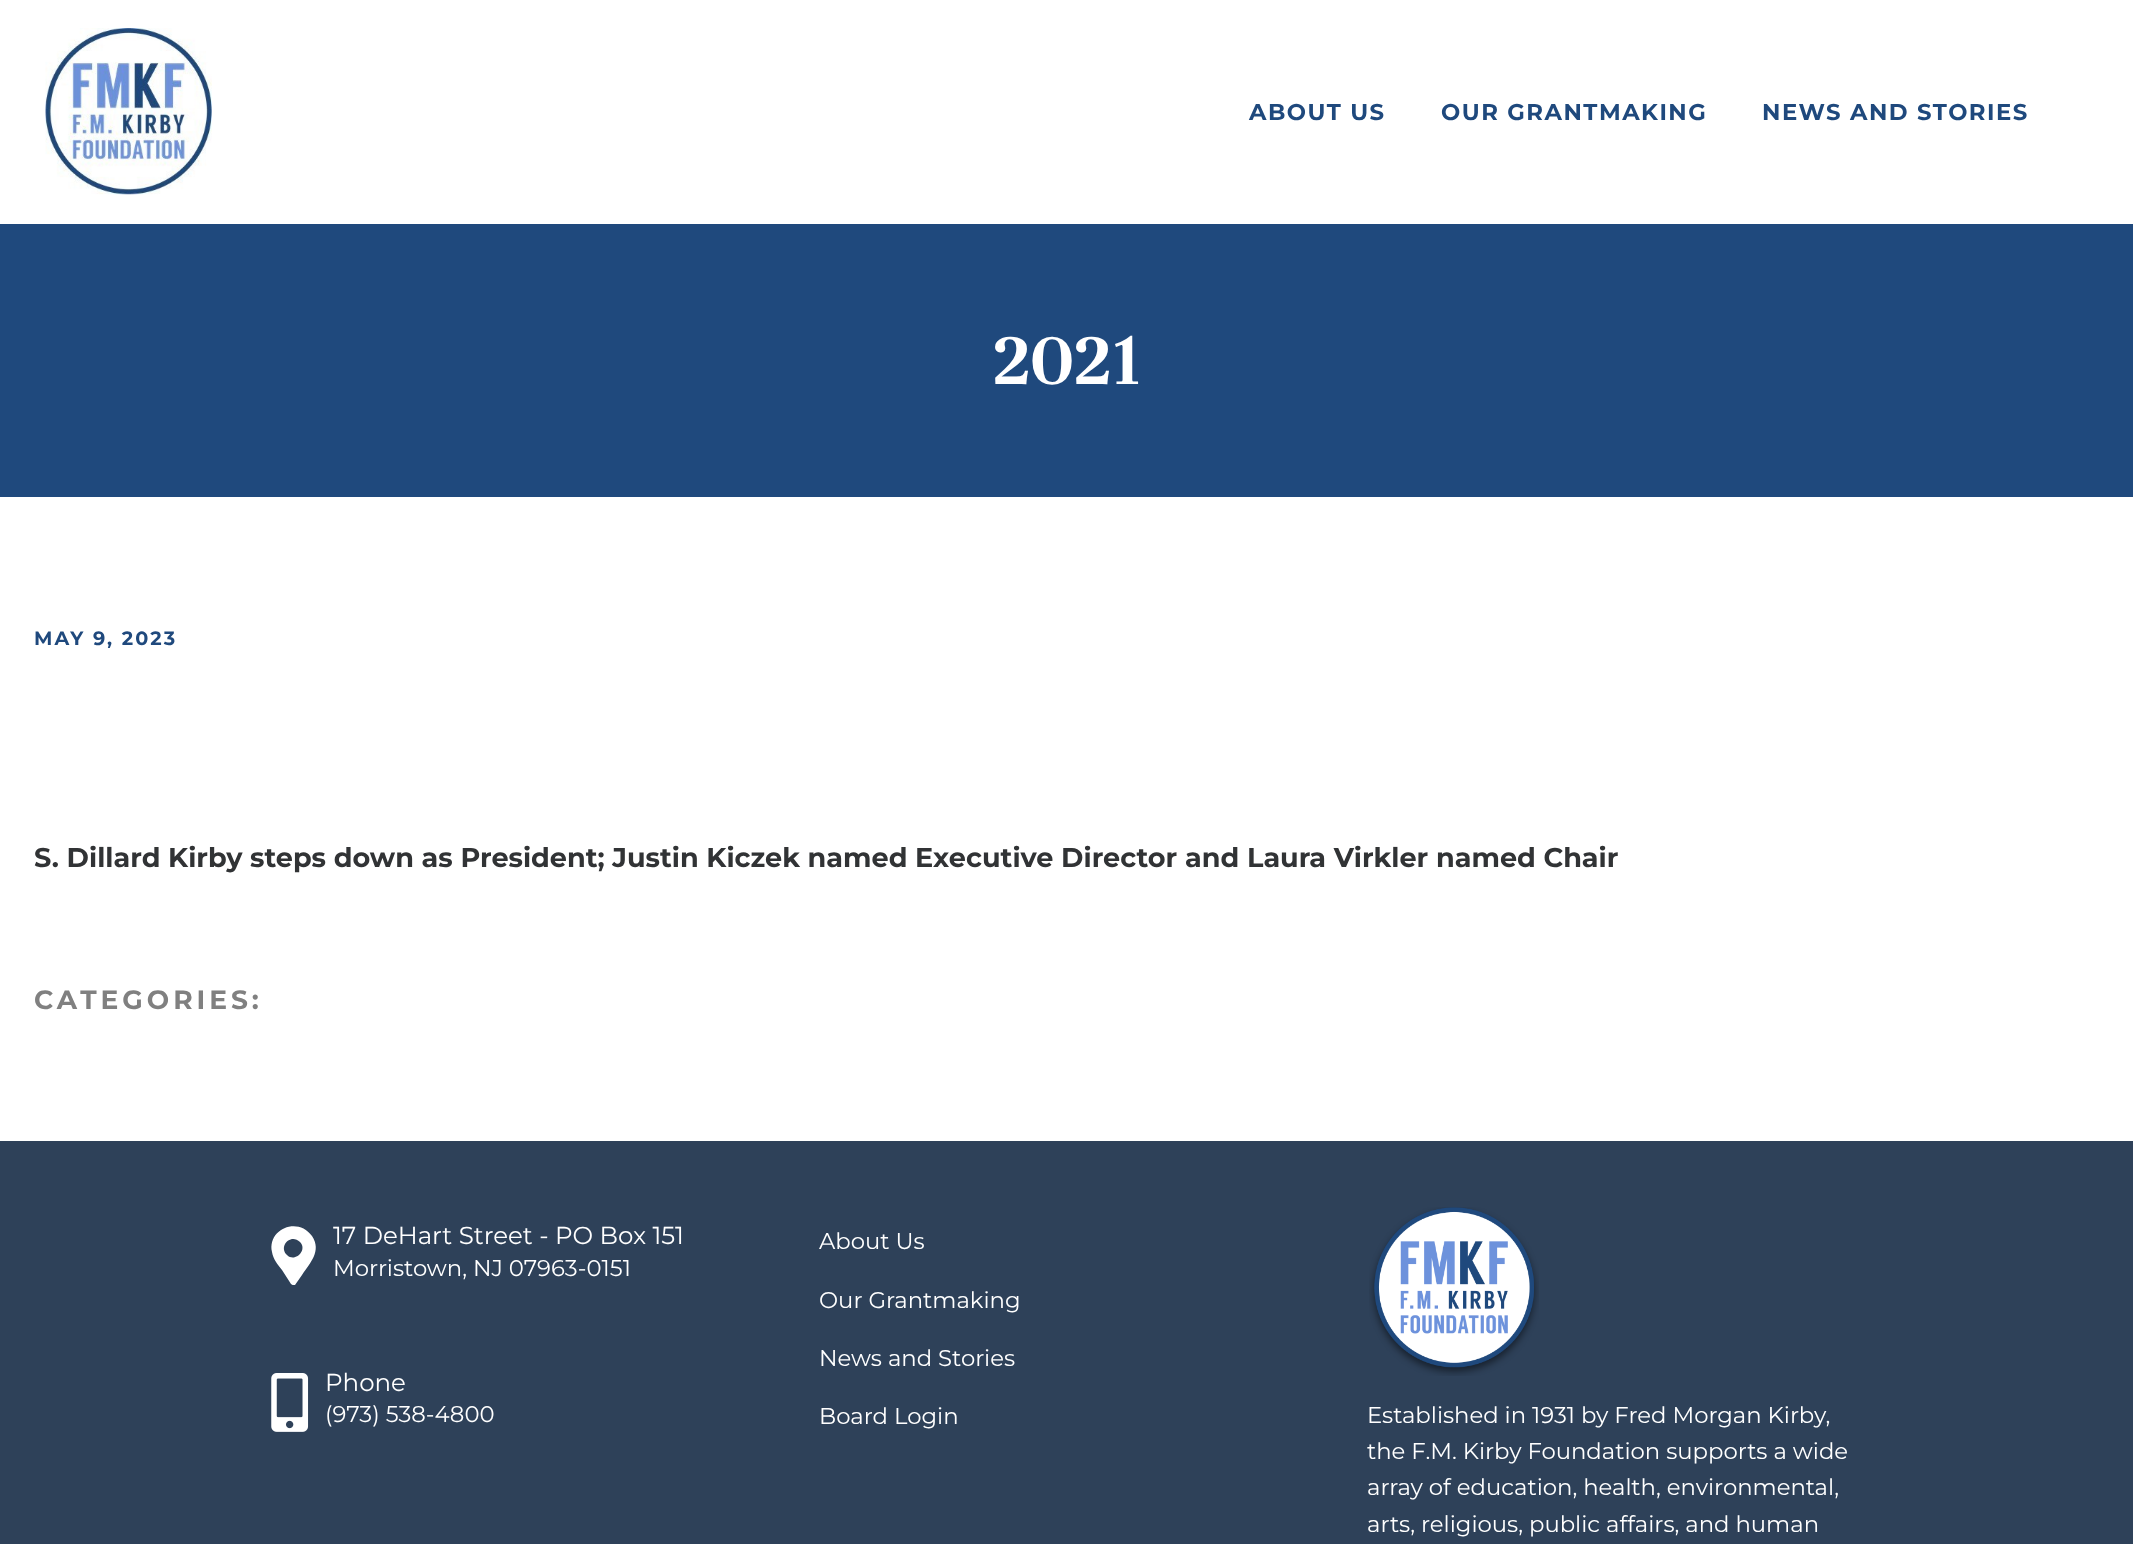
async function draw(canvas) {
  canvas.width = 2133;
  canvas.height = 1544;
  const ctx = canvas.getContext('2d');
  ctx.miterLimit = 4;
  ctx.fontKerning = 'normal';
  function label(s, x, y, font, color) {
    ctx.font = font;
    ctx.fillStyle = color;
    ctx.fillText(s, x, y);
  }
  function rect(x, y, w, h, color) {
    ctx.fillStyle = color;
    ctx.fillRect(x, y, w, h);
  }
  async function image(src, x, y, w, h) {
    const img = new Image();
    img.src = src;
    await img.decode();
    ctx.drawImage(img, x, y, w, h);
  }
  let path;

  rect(0, 0, 2133, 1544, '#fff');
  await image('assets/img1.png', 45, 28, 167, 167);
  ctx.letterSpacing = '1.5px';
  label('ABOUT US', 1249, 120, 'bold 22.75px Montserrat', '#1f497d');
  label('OUR GRANTMAKING', 1441, 120, 'bold 22.75px Montserrat', '#1f497d');
  label('NEWS AND STORIES', 1762, 120, 'bold 22.75px Montserrat', '#1f497d');
  rect(0, 224, 2133, 273, '#1f497d');
  ctx.letterSpacing = '0px';
  label('2021', 992, 384, 'bold 78px Unna', '#fff');
  ctx.letterSpacing = '2.1px';
  label('MAY 9, 2023', 34, 645, 'bold 19.25px Montserrat', '#1f497d');
  ctx.letterSpacing = '0px';
  label('S. Dillard Kirby steps down as President; Justin Kiczek named Executive Director and Laura Virkler named Chair', 34, 867, 'bold 27.12px Montserrat', '#313335');
  ctx.letterSpacing = '4px';
  label('CATEGORIES:', 34, 1009, 'bold 26.5px Montserrat', '#808080');
  rect(0, 1141, 2133, 403, '#2e4159');
  ctx.fillStyle = '#fff';
  path = new Path2D('M291 1284L282 1270C278 1265 273 1259 272 1252C267 1229 298 1216 312 1236C322 1251 310 1263 302 1275L295 1285C293 1285 292 1285 291 1284ZM287 1255C295 1263 308 1250 300 1242C291 1233 278 1246 287 1255Z');
  ctx.fill(path);
  ctx.letterSpacing = '0px';
  label('17 DeHart Street - PO Box 151', 333, 1244, '24.5px Montserrat', '#fff');
  label('Morristown, NJ 07963-0151', 333, 1276, '22.75px Montserrat', '#fff');
  await image('assets/img2.png', 271, 1373, 38, 59);
  label('Phone', 325, 1391, '24.5px Montserrat', '#fff');
  label('(973) 538-4800', 325, 1422, '22.75px Montserrat', '#fff');
  label('About Us', 819, 1249, '22.75px Montserrat', '#fff');
  label('Our Grantmaking', 819, 1308, '22.75px Montserrat', '#fff');
  label('News and Stories', 819, 1366, '22.75px Montserrat', '#fff');
  label('Board Login', 819, 1424, '22.75px Montserrat', '#fff');
  await image('assets/img3.png', 1369, 1207, 170, 169);
  label('Established in 1931 by Fred Morgan Kirby,', 1367, 1423, '22.75px Montserrat', '#fff');
  label('the F.M. Kirby Foundation supports a wide', 1367, 1459, '22.75px Montserrat', '#fff');
  label('array of education, health, environmental,', 1367, 1495, '22.75px Montserrat', '#fff');
  label('arts, religious, public affairs, and human', 1367, 1532, '22.75px Montserrat', '#fff');
}

draw(document.querySelector('canvas'));
